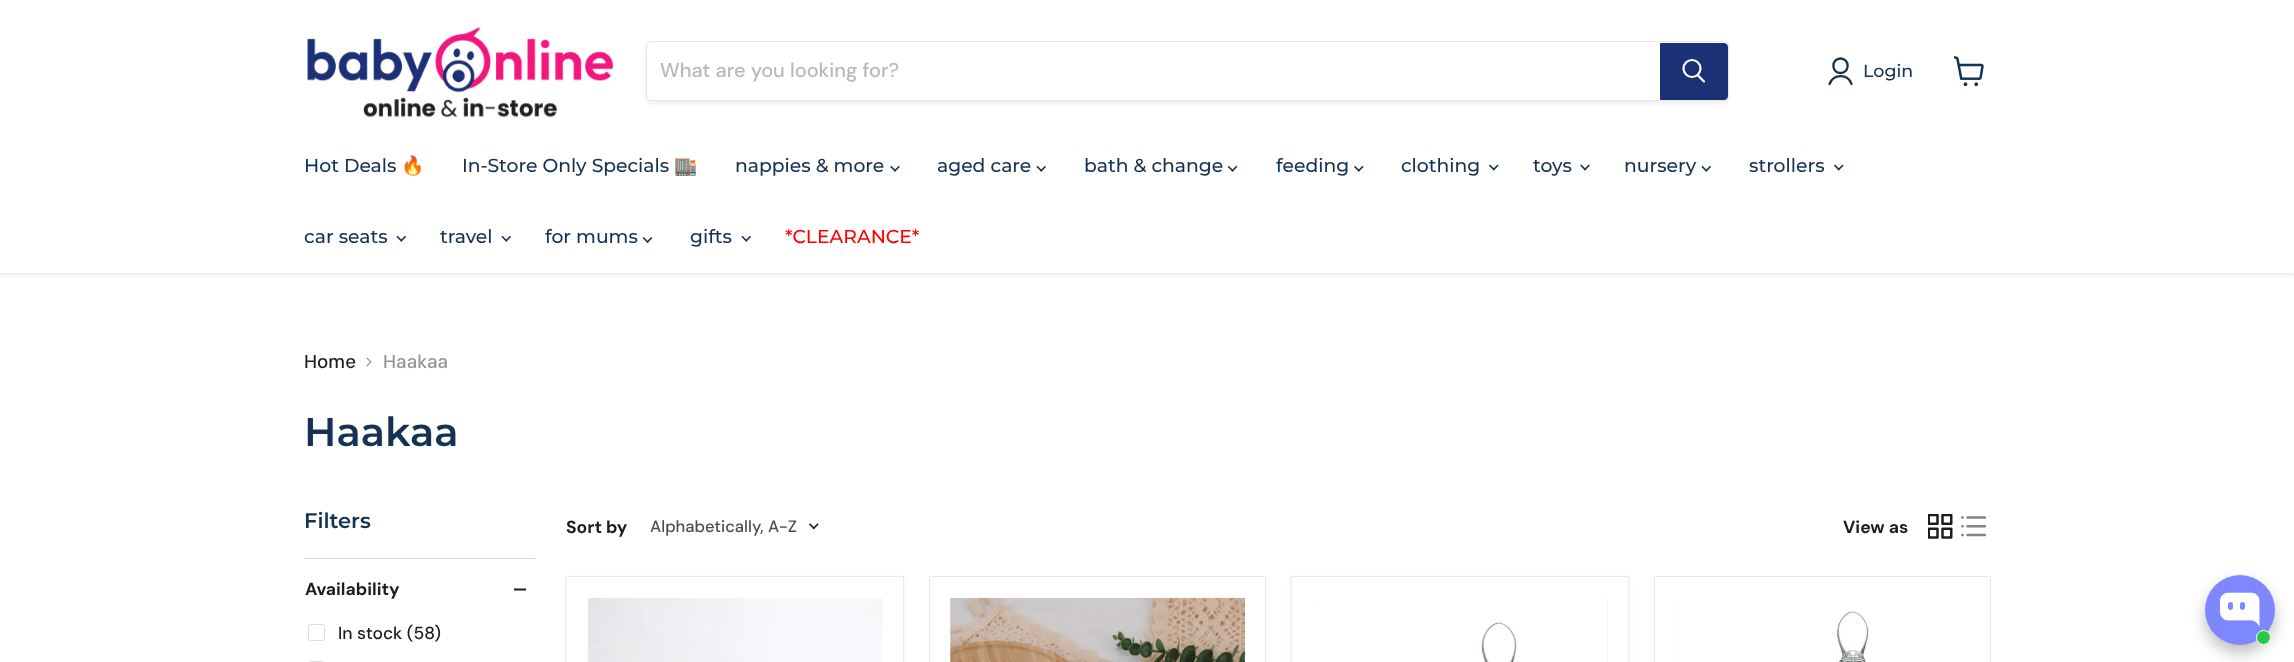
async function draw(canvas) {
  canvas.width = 2294;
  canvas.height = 662;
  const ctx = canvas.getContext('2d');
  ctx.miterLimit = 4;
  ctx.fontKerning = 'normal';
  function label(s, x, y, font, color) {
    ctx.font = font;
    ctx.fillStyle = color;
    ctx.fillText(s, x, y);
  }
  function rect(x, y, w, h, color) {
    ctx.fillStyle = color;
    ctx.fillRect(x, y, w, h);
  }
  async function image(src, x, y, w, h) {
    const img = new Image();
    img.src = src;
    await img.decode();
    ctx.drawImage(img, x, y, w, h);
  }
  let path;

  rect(0, 0, 2294, 662, '#fff');
  ctx.fillStyle = '#80808040';
  ctx.filter = 'blur(2.5px)';
  ctx.beginPath();
  ctx.rect(0, 1, 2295, 273);
  ctx.fill();
  ctx.filter = 'none';
  rect(0, 0, 2294, 273, '#fff');
  await image('assets/img1.png', 307, 27, 307, 91);
  ctx.save();
  path = new Path2D('M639 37H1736V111H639ZM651 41H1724C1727 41 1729 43 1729 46V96C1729 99 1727 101 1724 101H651C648 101 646 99 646 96V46C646 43 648 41 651 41Z');
  ctx.clip(path, 'evenodd');
  ctx.fillStyle = '#8080801c';
  ctx.filter = 'blur(2px)';
  ctx.beginPath();
  ctx.roundRect(646, 44, 1083, 60, 5);
  ctx.fill();
  ctx.filter = 'none';
  ctx.restore();
  ctx.beginPath();
  ctx.roundRect(646.5, 41.5, 1082, 59, 4.5);
  ctx.strokeStyle = '#80808033';
  ctx.stroke();
  label('What are you looking for?', 660, 77, '500 20px "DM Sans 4"', '#b8b8b8');
  ctx.fillStyle = '#1c3076';
  ctx.beginPath();
  ctx.roundRect(1660.5, 43.5, 67, 56, [0, 3.5, 3.5, 0]);
  ctx.fill();
  ctx.strokeStyle = '#1c3076';
  ctx.stroke();
  path = new Path2D('M1704 81.5L1698 75.5');
  ctx.strokeStyle = '#fff';
  ctx.lineWidth = 2.2;
  ctx.lineCap = 'round';
  ctx.stroke(path);
  ctx.beginPath();
  ctx.arc(1692, 68.5, 8.5, 0, 2 * Math.PI);
  ctx.stroke();
  path = new Path2D('M1840.5 73C1850 73 1850 58.5 1840.5 58.5C1831 58.5 1831 73 1840.5 73ZM1851.5 84C1848 73.5 1833.5 73.5 1829.5 84');
  ctx.strokeStyle = '#143253';
  ctx.lineWidth = 2.3;
  ctx.lineJoin = 'round';
  ctx.stroke(path);
  label('Login', 1863, 77, '500 17.5px Montserrat', '#143253');
  await image('assets/img2.png', 1954, 56, 30, 30);
  label('Hot Deals', 304, 172, '500 18.75px Montserrat', '#143253');
  label('🔥', 401, 172, '18.75px Noto Color Emoji', '#143253');
  label('In-Store Only Specials', 462, 172, '500 18.75px Montserrat', '#143253');
  label('🏬', 674, 172, '18.75px Noto Color Emoji', '#143253');
  label('nappies & more', 735, 172, '500 18.75px Montserrat', '#143253');
  await image('assets/img3.png', 890, 165, 10, 7);
  label('aged care', 937, 172, '500 18.75px Montserrat', '#143253');
  await image('assets/img4.png', 1036, 165, 10, 7);
  label('bath & change', 1084, 172, '500 18.75px Montserrat', '#143253');
  await image('assets/img5.png', 1228, 165, 10, 7);
  label('feeding', 1276, 172, '500 18.75px Montserrat', '#143253');
  await image('assets/img6.png', 1354, 165, 10, 7);
  label('clothing', 1401, 172, '500 18.75px Montserrat', '#143253');
  await image('assets/img7.png', 1489, 164, 10, 7);
  label('toys', 1533, 172, '500 18.75px Montserrat', '#143253');
  await image('assets/img8.png', 1580, 164, 10, 7);
  label('nursery', 1624, 172, '500 18.75px Montserrat', '#143253');
  await image('assets/img4.png', 1701, 165, 10, 7);
  label('strollers', 1749, 172, '500 18.75px Montserrat', '#143253');
  await image('assets/img7.png', 1834, 164, 10, 7);
  label('car seats', 304, 243, '500 18.75px Montserrat', '#143253');
  await image('assets/img4.png', 396, 235, 10, 7);
  label('travel', 440, 243, '500 18.75px Montserrat', '#143253');
  await image('assets/img4.png', 501, 235, 10, 7);
  label('for mums', 545, 243, '500 18.75px Montserrat', '#143253');
  await image('assets/img9.png', 643, 237, 10, 6);
  label('gifts', 690, 243, '500 18.75px Montserrat', '#143253');
  await image('assets/img4.png', 741, 235, 10, 7);
  label('*CLEARANCE*', 785, 243, '500 18.75px Montserrat', '#f00');
  label('Home', 304, 368, '500 18.75px DM Sans', '#1d1d1d');
  await image('assets/img10.png', 366, 357, 6, 10);
  label('Haakaa', 383, 368, '500 18.75px DM Sans', '#949494');
  label('Haakaa', 304, 446, '600 40px Montserrat', '#143253');
  label('Filters', 304, 528, '600 21px Montserrat', '#143253');
  rect(304, 558, 231, 1, '#d9d9d9');
  label('Availability', 305, 595, 'bold 17.5px DM Sans', '#1d1d1d');
  await image('assets/img11.png', 514, 588, 12, 3);
  ctx.beginPath();
  ctx.roundRect(308.5, 624.5, 16, 16, 2);
  ctx.strokeStyle = '#ddd';
  ctx.lineWidth = 1;
  ctx.lineJoin = 'miter';
  ctx.stroke();
  label('In stock (58)', 338, 639, '500 17.5px "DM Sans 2"', '#1d1d1d');
  ctx.beginPath();
  ctx.roundRect(308.5, 661.5, 16, 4, 2);
  ctx.stroke();
  label('Sort by', 566, 533, 'bold 17.5px DM Sans', '#1d1d1d');
  label('Alphabetically, A-Z', 650, 532, '500 16.5px "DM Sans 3"', '#4d4d4d');
  await image('assets/img12.png', 809, 523, 10, 7);
  label('View as', 1843, 533, 'bold 17.5px DM Sans', '#1d1d1d');
  await image('assets/img13.png', 1928, 514, 25, 25);
  await image('assets/img14.png', 1961, 516, 25, 21);
  ctx.fillStyle = '#8080801c';
  ctx.filter = 'blur(2.5px)';
  ctx.beginPath();
  ctx.rect(566, 578, 338, 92);
  ctx.fill();
  ctx.filter = 'none';
  ctx.fillStyle = '#fff';
  ctx.beginPath();
  ctx.rect(566.5, 576.5, 337, 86);
  ctx.fill();
  ctx.strokeStyle = '#ebebeb';
  ctx.stroke();
  await image('assets/img15.png', 588, 598, 295, 64);
  ctx.strokeStyle = '#eaeaea';
  ctx.strokeRect(929.5, 576.5, 336, 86);
  rect(950, 598, 1, 64, '#f6f6f6');
  await image('assets/img16.png', 950, 597, 295, 65);
  ctx.fillStyle = '#8080801c';
  ctx.filter = 'blur(2.5px)';
  ctx.beginPath();
  ctx.rect(1291, 578, 338, 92);
  ctx.fill();
  ctx.filter = 'none';
  ctx.fillStyle = '#fff';
  ctx.beginPath();
  ctx.rect(1291.5, 576.5, 337, 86);
  ctx.fill();
  ctx.strokeStyle = '#ebebeb';
  ctx.stroke();
  await image('assets/img17.png', 1313, 598, 294, 64);
  rect(1607, 598, 1, 64, '#f6f6f6');
  ctx.strokeStyle = '#eaeaea';
  ctx.strokeRect(1654.5, 576.5, 336, 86);
  rect(1675, 598, 1, 64, '#f6f6f6');
  await image('assets/img18.png', 1675, 598, 295, 64);
  ctx.fillStyle = '#00000040';
  ctx.filter = 'blur(7.5px)';
  ctx.beginPath();
  ctx.roundRect(2205, 583, 70, 70, 35);
  ctx.fill();
  ctx.filter = 'none';
  ctx.fillStyle = '#7d87ff';
  ctx.beginPath();
  ctx.arc(2240, 610, 35, 0, 2 * Math.PI);
  ctx.fill();
  await image('assets/img19.png', 2220, 592, 40, 35);
  ctx.fillStyle = '#27ca40';
  ctx.beginPath();
  ctx.arc(2263.5, 637.5, 7, 0, 2 * Math.PI);
  ctx.fill();
  ctx.strokeStyle = '#fff';
  ctx.stroke();
}

draw(document.querySelector('canvas'));
